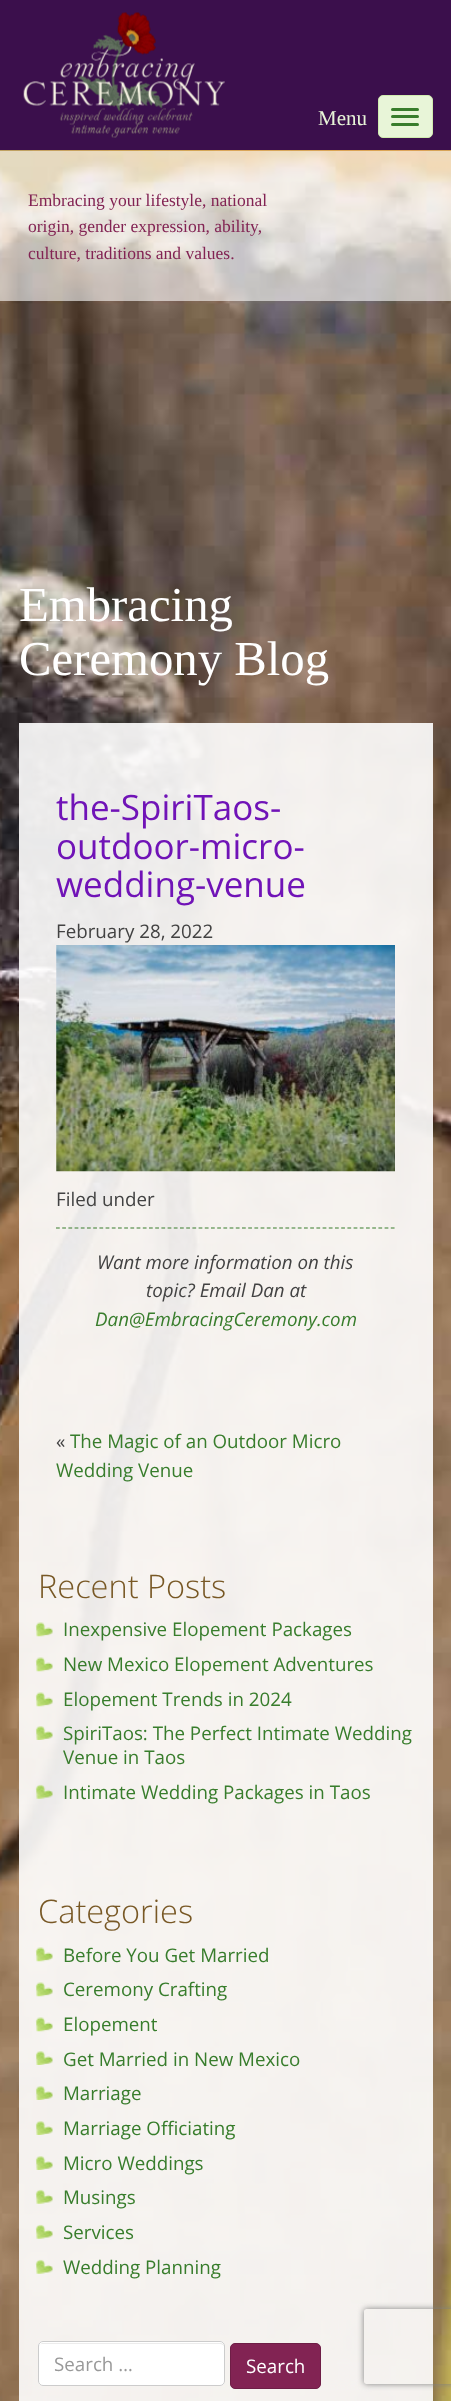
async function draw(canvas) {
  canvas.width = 451;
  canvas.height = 2401;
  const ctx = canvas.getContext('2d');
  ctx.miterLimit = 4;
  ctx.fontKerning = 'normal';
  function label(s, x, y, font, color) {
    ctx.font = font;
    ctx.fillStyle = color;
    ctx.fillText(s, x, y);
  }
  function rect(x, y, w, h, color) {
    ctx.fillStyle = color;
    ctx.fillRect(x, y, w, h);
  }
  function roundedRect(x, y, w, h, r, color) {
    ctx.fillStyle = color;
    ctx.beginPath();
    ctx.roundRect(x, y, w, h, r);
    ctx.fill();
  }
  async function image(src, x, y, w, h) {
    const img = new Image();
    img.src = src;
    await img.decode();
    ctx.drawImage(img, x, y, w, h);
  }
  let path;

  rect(0, 0, 451, 2401, '#fff');
  await image('assets/img1.png', 0, 150, 451, 2251);
  rect(0, 0, 451, 150, '#3b0f4c');
  await image('assets/img2.png', 23, 12, 202, 126);
  label('Menu', 318, 125, '21px Liberation Serif', '#e8f5d8');
  ctx.beginPath();
  ctx.roundRect(378.5, 95.5, 54, 42, 4.5);
  ctx.fill();
  ctx.strokeStyle = '#d0ebaf';
  ctx.stroke();
  roundedRect(391, 108, 28, 3, 1.5, '#387d2c');
  roundedRect(391, 115, 28, 3, 1.5, '#387d2c');
  roundedRect(391, 123, 28, 3, 1.5, '#387d2c');
  rect(0, 151, 451, 150, '#ffffff99');
  label('Embracing your lifestyle, national', 28, 206, '17.5px Liberation Serif', '#822353');
  label('origin, gender expression, ability,', 28, 232, '17.5px Liberation Serif', '#822353');
  label('culture, traditions and values.', 28, 259, '17.5px Liberation Serif', '#822353');
  label('Embracing', 19, 621, '48.75px Liberation Serif', '#fff');
  label('Ceremony Blog', 19, 675, '48.75px Liberation Serif', '#fff');
  rect(19, 723, 414, 667, '#ffffffe6');
  label('the-SpiriTaos-', 56, 820, '35px Open Sans', '#7013b7');
  label('outdoor-micro-', 56, 859, '35px Open Sans', '#7013b7');
  label('wedding-venue', 56, 897, '35px Open Sans', '#7013b7');
  label('February 28, 2022', 56, 938, '18.75px Open Sans', '#424242');
  await image('assets/img3.png', 56, 945, 339, 227);
  label('Filed under', 56, 1206, '18.75px Open Sans', '#424242');
  path = new Path2D('M56 1228H395');
  ctx.strokeStyle = '#387d2c';
  ctx.lineWidth = 1.2;
  ctx.setLineDash([3.75, 2.45]);
  ctx.stroke(path);
  label('Want more information on this', 97, 1269, 'italic 18.75px Open Sans', '#424242');
  label('topic? Email Dan at', 146, 1297, 'italic 18.75px Open Sans', '#424242');
  label('Dan@EmbracingCeremony.com', 95, 1326, 'italic 18.75px Open Sans', '#387d2c');
  rect(19, 1390, 414, 133, '#ffffffe6');
  label('«', 56, 1448, '18.75px Open Sans', '#424242');
  label('The Magic of an Outdoor Micro', 70, 1448, '18.75px Open Sans', '#387d2c');
  label('Wedding Venue', 56, 1477, '18.75px Open Sans', '#387d2c');
  rect(19, 1523, 414, 878, '#ffffffe6');
  label('Recent Posts', 38, 1598, '300 32.5px Open Sans', '#785825');
  await image('assets/img4.png', 35, 1622, 18, 15);
  label('Inexpensive Elopement Packages', 63, 1636, '18.75px Open Sans', '#387d2c');
  await image('assets/img5.png', 35, 1657, 18, 15);
  label('New Mexico Elopement Adventures', 63, 1671, '18.75px Open Sans', '#387d2c');
  await image('assets/img6.png', 35, 1692, 18, 15);
  label('Elopement Trends in 2024', 63, 1706, '18.75px Open Sans', '#387d2c');
  await image('assets/img7.png', 35, 1726, 18, 14);
  label('SpiriTaos: The Perfect Intimate Wedding', 63, 1740, '18.75px Open Sans', '#387d2c');
  label('Venue in Taos', 63, 1764, '18.75px Open Sans', '#387d2c');
  await image('assets/img8.png', 35, 1784, 18, 15);
  label('Intimate Wedding Packages in Taos', 63, 1799, '18.75px Open Sans', '#387d2c');
  label('Categories', 38, 1923, '300 32.5px Open Sans', '#785825');
  await image('assets/img9.png', 35, 1947, 18, 15);
  label('Before You Get Married', 63, 1962, '18.75px Open Sans', '#387d2c');
  await image('assets/img10.png', 35, 1982, 18, 15);
  label('Ceremony Crafting', 63, 1996, '18.75px Open Sans', '#387d2c');
  await image('assets/img11.png', 35, 2017, 18, 15);
  label('Elopement', 63, 2031, '18.75px Open Sans', '#387d2c');
  await image('assets/img12.png', 35, 2051, 18, 14);
  label('Get Married in New Mexico', 63, 2066, '18.75px Open Sans', '#387d2c');
  await image('assets/img13.png', 35, 2086, 18, 14);
  label('Marriage', 63, 2100, '18.75px Open Sans', '#387d2c');
  await image('assets/img14.png', 35, 2121, 18, 14);
  label('Marriage Officiating', 63, 2135, '18.75px Open Sans', '#387d2c');
  await image('assets/img15.png', 35, 2156, 18, 14);
  label('Micro Weddings', 63, 2170, '18.75px Open Sans', '#387d2c');
  await image('assets/img16.png', 35, 2189, 18, 15);
  label('Musings', 63, 2204, '18.75px Open Sans', '#387d2c');
  await image('assets/img17.png', 35, 2224, 18, 15);
  label('Services', 63, 2239, '18.75px Open Sans', '#387d2c');
  await image('assets/img18.png', 35, 2259, 18, 15);
  label('Wedding Planning', 63, 2274, '18.75px Open Sans', '#387d2c');
  roundedRect(38, 2341, 187, 45, 5, '#fff');
  ctx.fillStyle = '#ececec';
  path = new Path2D('M42 2344H220C222 2344 224 2345 224 2348C224 2345 223 2343 220 2343H42C40 2344 39 2346 39 2348C39 2345 40 2344 42 2344Z');
  ctx.fill(path);
  ctx.beginPath();
  ctx.roundRect(38.5, 2341.5, 186, 44, 4.5);
  ctx.strokeStyle = '#ccc';
  ctx.lineWidth = 1;
  ctx.setLineDash([]);
  ctx.stroke();
  label('Search …', 54, 2371, '18.75px Open Sans', '#999');
  ctx.fillStyle = '#822353';
  ctx.beginPath();
  ctx.roundRect(230.5, 2343.5, 90, 45, 4.5);
  ctx.fill();
  ctx.strokeStyle = '#6e1e46';
  ctx.stroke();
  label('Search', 246, 2373, '18.75px Open Sans', '#fff');
  ctx.save();
  path = new Path2D('M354 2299H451V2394H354ZM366.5 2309H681.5C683 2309 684 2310 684 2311.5V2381.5C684 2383 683 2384 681.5 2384H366.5C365 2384 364 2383 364 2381.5V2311.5C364 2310 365 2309 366.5 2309Z');
  ctx.clip(path, 'evenodd');
  ctx.fillStyle = '#808080';
  ctx.filter = 'blur(3px)';
  ctx.beginPath();
  ctx.roundRect(364, 2309, 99, 75, 2.5);
  ctx.fill();
  ctx.filter = 'none';
  ctx.restore();
}

draw(document.querySelector('canvas'));
